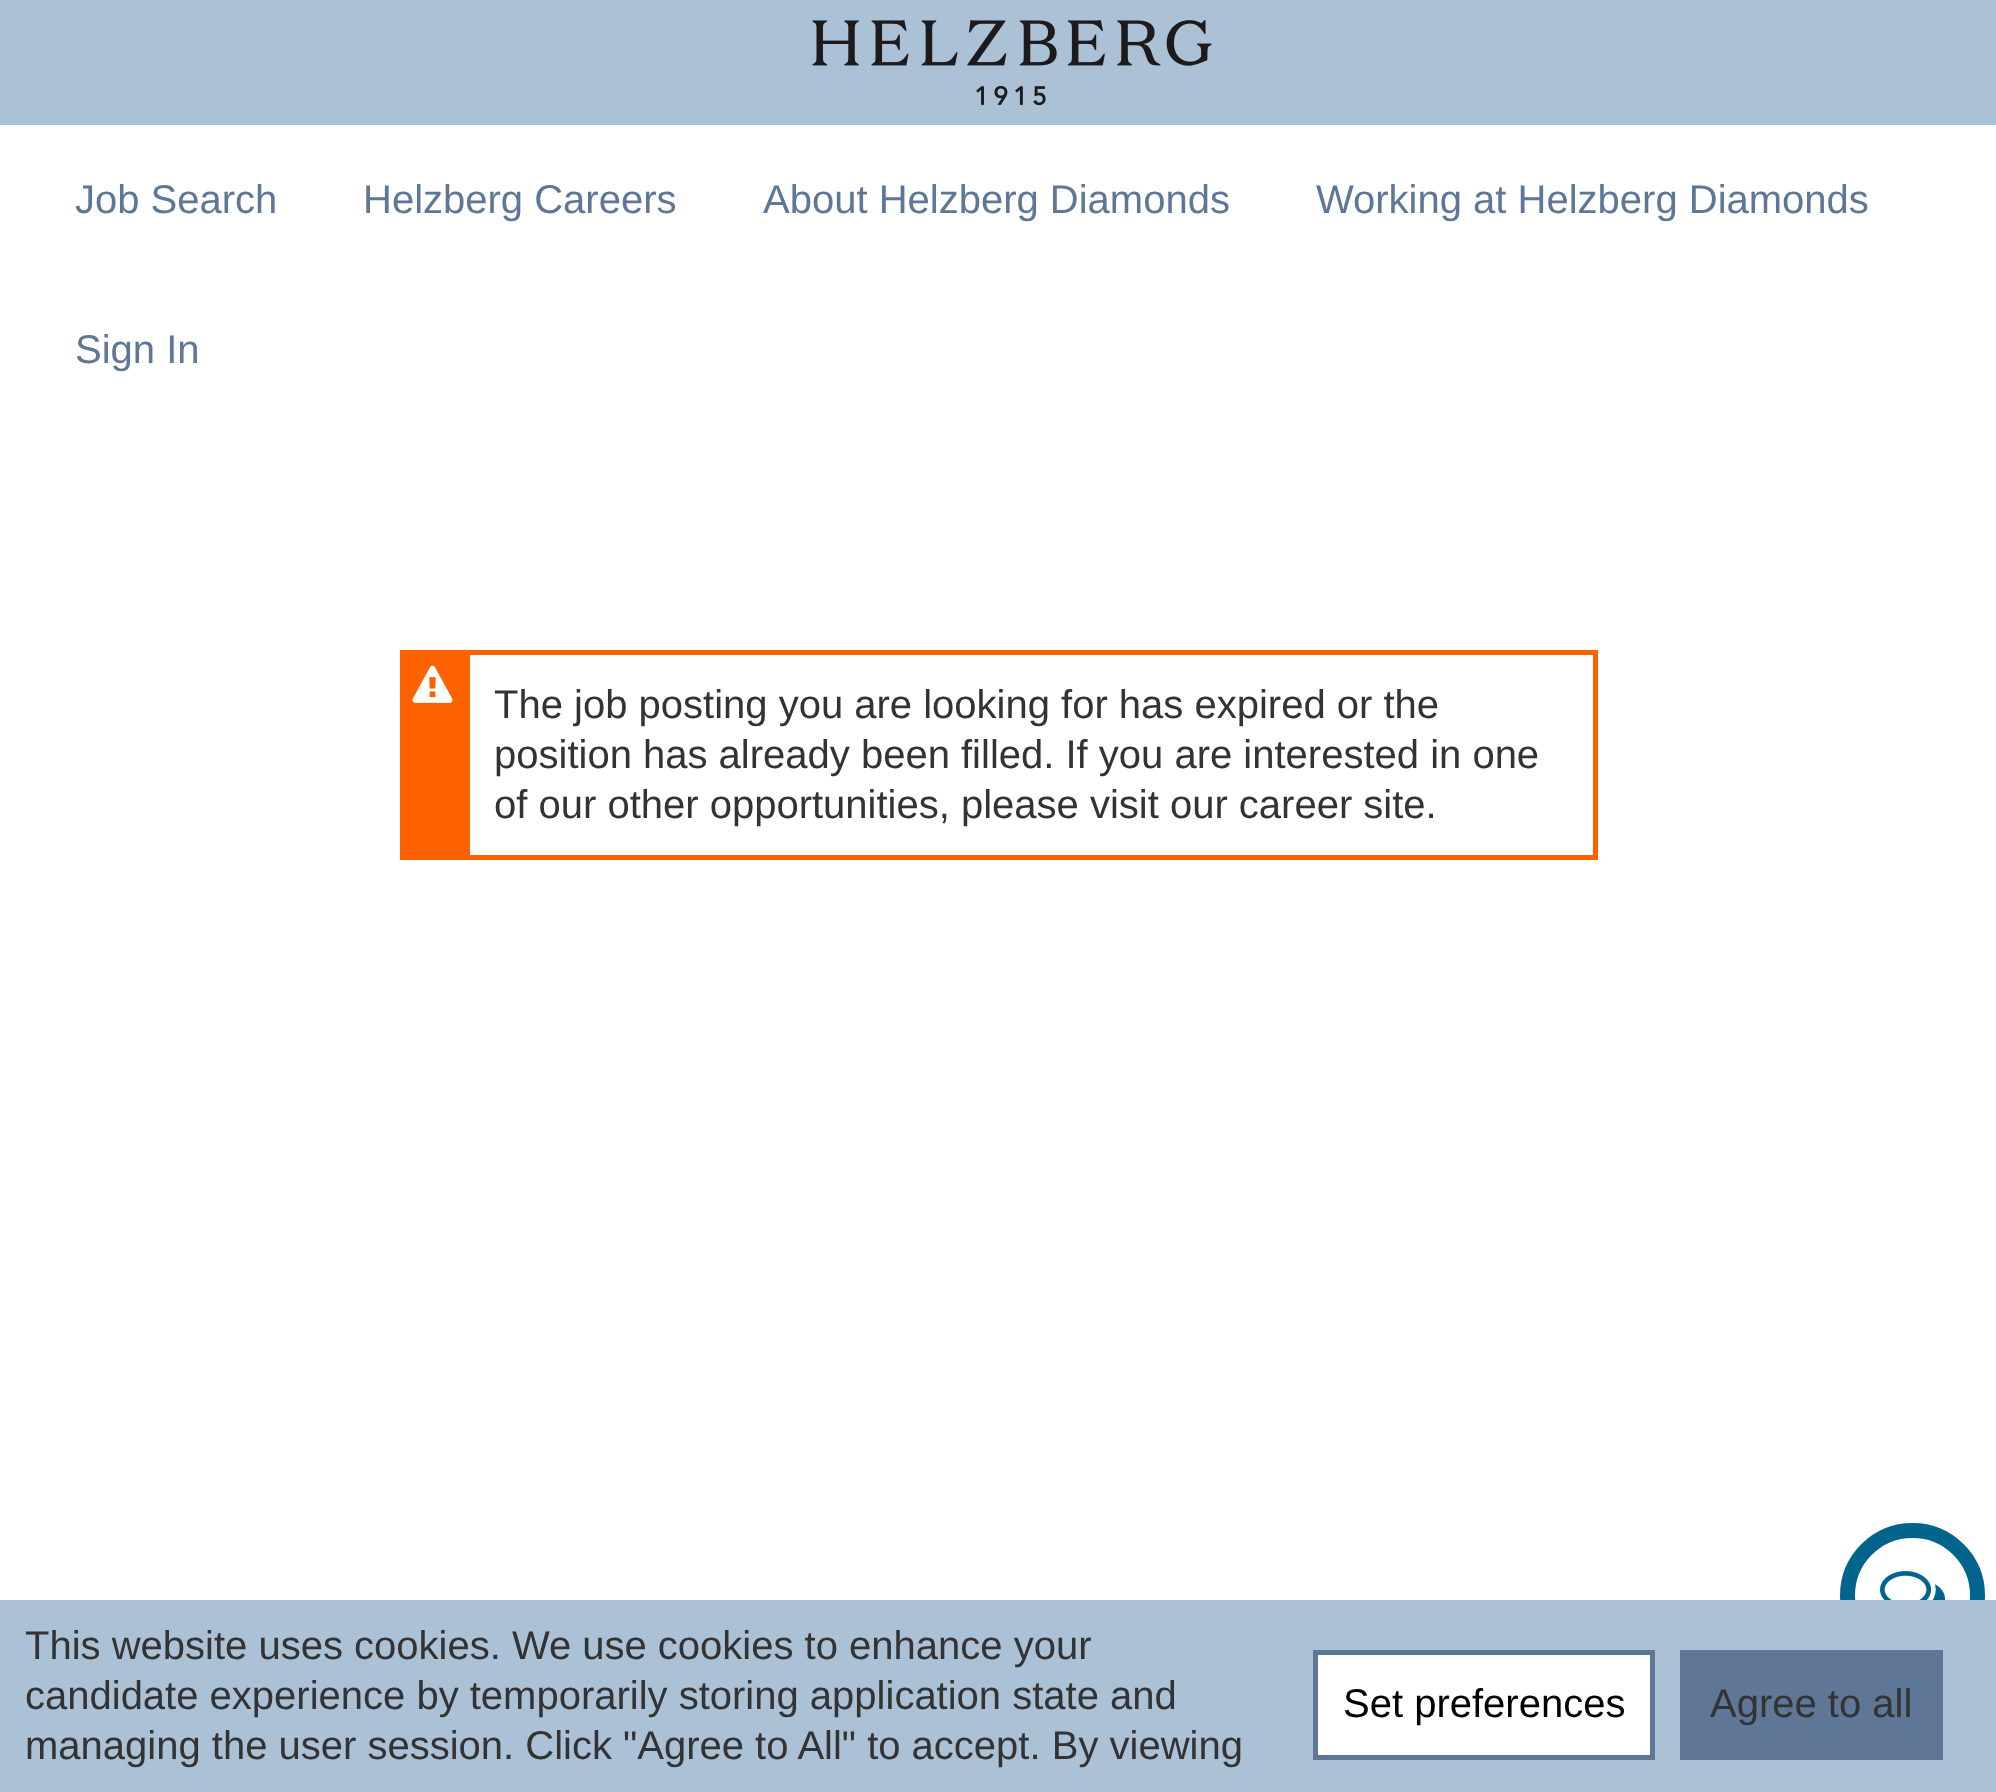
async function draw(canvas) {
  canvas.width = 1996;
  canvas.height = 1792;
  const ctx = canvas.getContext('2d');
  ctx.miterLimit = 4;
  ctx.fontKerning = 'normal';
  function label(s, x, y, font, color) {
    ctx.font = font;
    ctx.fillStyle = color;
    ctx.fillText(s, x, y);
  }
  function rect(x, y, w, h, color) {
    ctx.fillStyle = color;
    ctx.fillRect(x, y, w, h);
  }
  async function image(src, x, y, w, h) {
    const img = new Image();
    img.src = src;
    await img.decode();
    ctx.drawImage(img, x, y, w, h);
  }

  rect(0, 0, 1996, 1792, '#fff');
  rect(0, 0, 1996, 125, '#abc2d6');
  await image('assets/img1.png', 812, 20, 400, 86);
  label('Job Search', 75, 213, '40px Liberation Sans', '#5e7797');
  label('Helzberg Careers', 363, 213, '40px Liberation Sans', '#5e7797');
  label('About Helzberg Diamonds', 763, 213, '40px Liberation Sans', '#5e7797');
  label('Working at Helzberg Diamonds', 1316, 213, '40px Liberation Sans', '#5e7797');
  label('Sign In', 75, 363, '40px Liberation Sans', '#5e7797');
  rect(400, 650, 65, 210, '#fe6100');
  await image('assets/img2.png', 412, 665, 41, 38);
  ctx.strokeStyle = '#fe6100';
  ctx.lineWidth = 5;
  ctx.strokeRect(467.5, 652.5, 1128, 205);
  label('The job posting you are looking for has expired or the', 494, 718, '40px Liberation Sans', '#333');
  label('position has already been filled. If you are interested in one', 494, 768, '40px Liberation Sans', '#333');
  label('of our other opportunities, please visit our career site.', 494, 818, '40px Liberation Sans', '#333');
  ctx.beginPath();
  ctx.arc(1912.5, 1595.5, 65, 0, 2 * Math.PI);
  ctx.strokeStyle = '#00648d';
  ctx.lineWidth = 15;
  ctx.stroke();
  await image('assets/img3.png', 1880, 1571, 65, 29);
  rect(0, 1600, 1996, 192, '#abc2d6');
  label('This website uses cookies. We use cookies to enhance your', 25, 1659, '40px Liberation Sans', '#333');
  label('candidate experience by temporarily storing application state and', 25, 1709, '40px Liberation Sans', '#333');
  label('managing the user session. Click "Agree to All" to accept. By viewing', 25, 1759, '40px Liberation Sans', '#333');
  ctx.fillStyle = '#fff';
  ctx.beginPath();
  ctx.rect(1315.5, 1652.5, 337, 105);
  ctx.fill();
  ctx.strokeStyle = '#5e7797';
  ctx.lineWidth = 5;
  ctx.stroke();
  label('Set preferences', 1343, 1717, '40px Liberation Sans', '#000');
  rect(1680, 1650, 263, 110, '#5e7797');
  label('Agree to all', 1710, 1717, '40px Liberation Sans', '#333');
}

draw(document.querySelector('canvas'));
